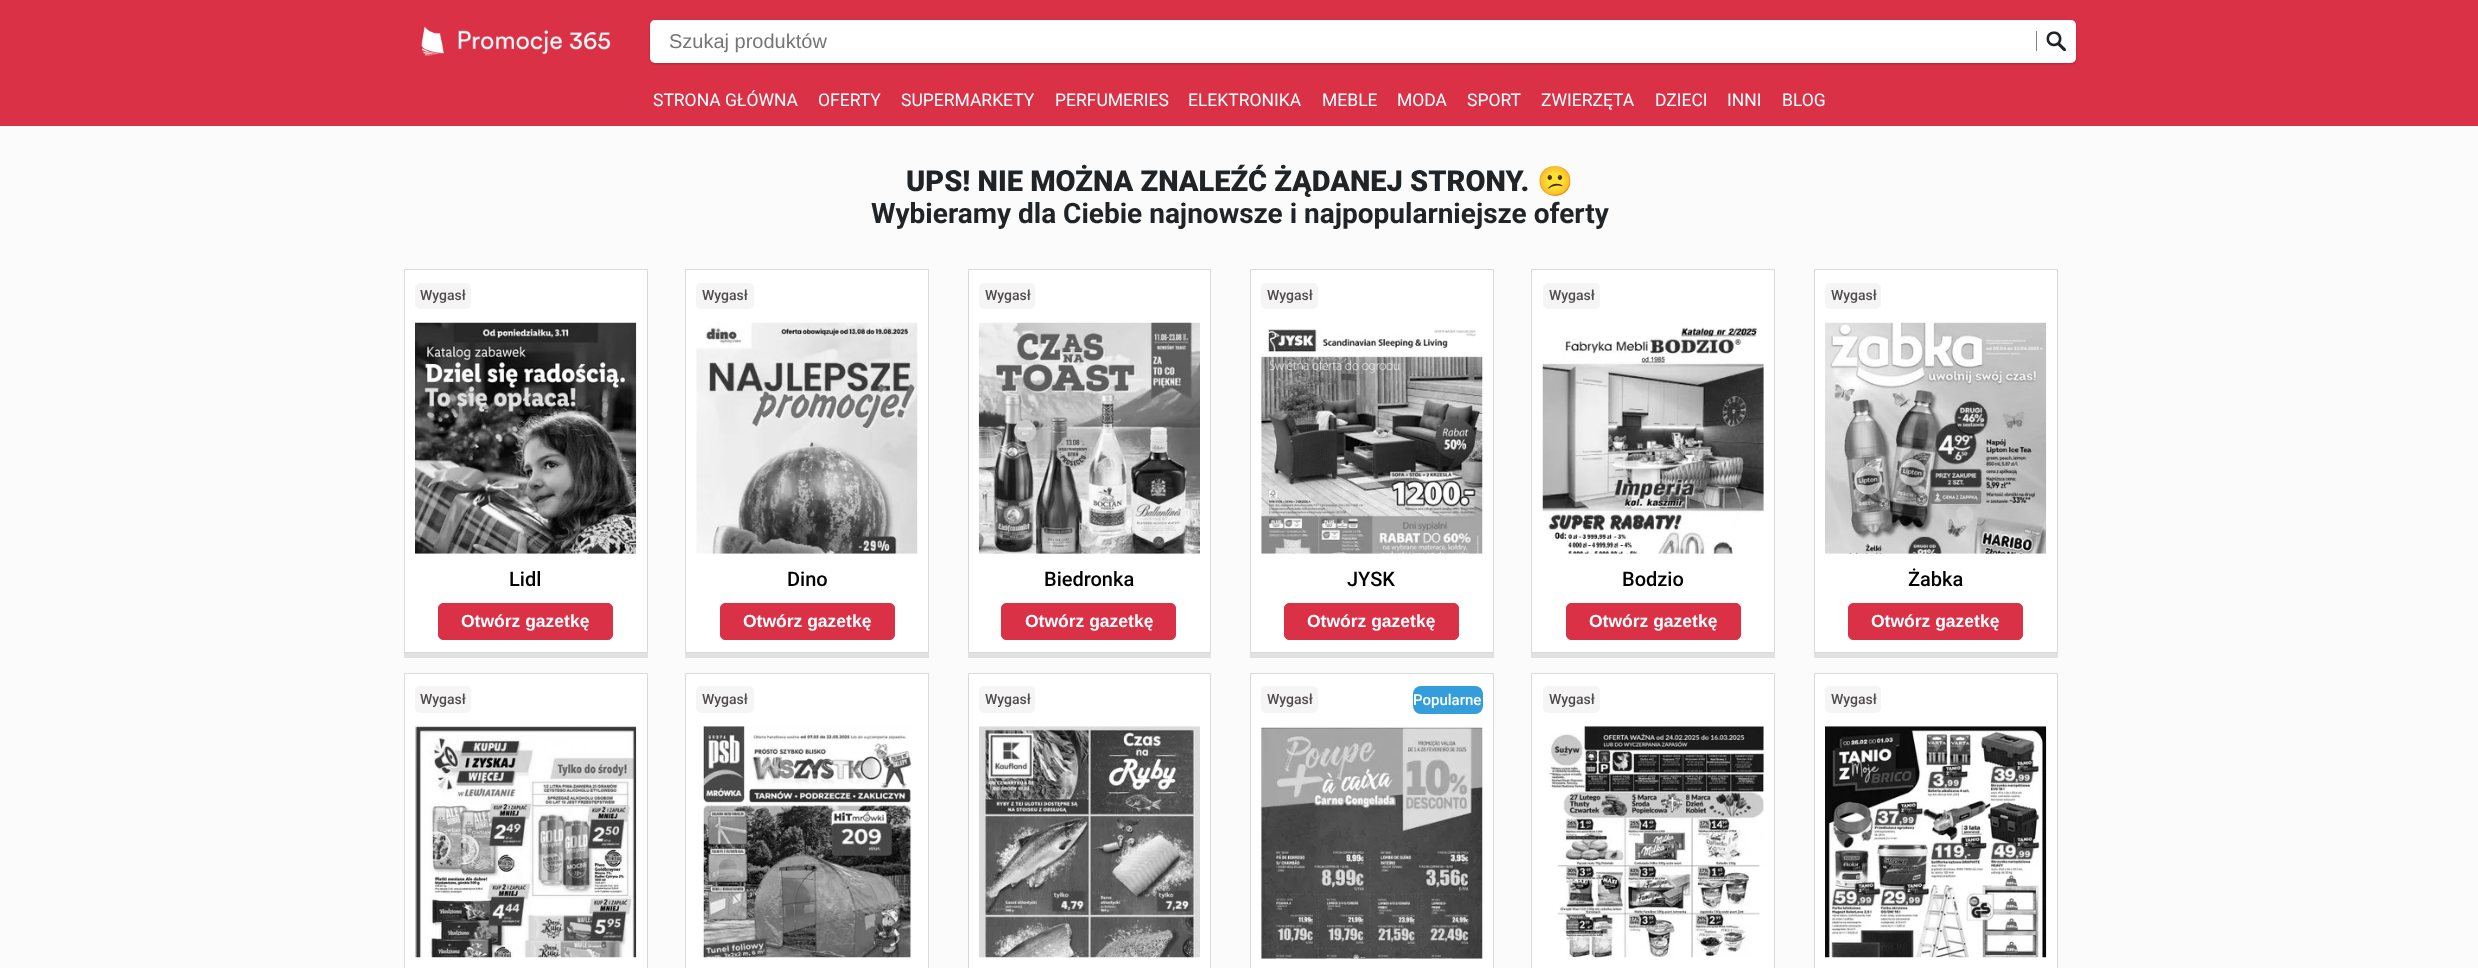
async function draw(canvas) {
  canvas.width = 2478;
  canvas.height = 968;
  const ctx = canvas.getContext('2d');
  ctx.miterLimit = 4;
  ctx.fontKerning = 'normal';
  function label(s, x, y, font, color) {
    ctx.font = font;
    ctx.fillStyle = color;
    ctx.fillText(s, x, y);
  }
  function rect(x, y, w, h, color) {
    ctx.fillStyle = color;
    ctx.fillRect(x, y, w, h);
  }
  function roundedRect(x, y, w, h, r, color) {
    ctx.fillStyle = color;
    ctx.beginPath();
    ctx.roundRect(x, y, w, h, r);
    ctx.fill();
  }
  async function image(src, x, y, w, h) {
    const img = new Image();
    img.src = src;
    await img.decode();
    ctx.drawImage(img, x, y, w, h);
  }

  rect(0, 0, 2478, 968, '#fbfbfb');
  rect(0, 0, 2478, 126, '#db3147');
  await image('assets/img1.png', 421, 26, 190, 30);
  ctx.fillStyle = '#00000033';
  ctx.filter = 'blur(1px)';
  ctx.beginPath();
  ctx.roundRect(650, 21, 1426, 43, 5);
  ctx.fill();
  ctx.filter = 'none';
  roundedRect(650, 20, 1426, 43, 5, '#fff');
  label('Szukaj produktów', 669, 48, '20px Liberation Sans', '#757575');
  rect(2036, 31, 1, 20, '#808080');
  await image('assets/img2.png', 2046, 31, 20, 20);
  label('STRONA GŁÓWNA', 653, 106, '17.5px Roboto', '#fff');
  label('OFERTY', 818, 106, '17.5px Roboto', '#fff');
  label('SUPERMARKETY', 901, 106, '17.5px Roboto', '#fff');
  label('PERFUMERIES', 1055, 106, '17.5px Roboto', '#fff');
  label('ELEKTRONIKA', 1188, 106, '17.5px Roboto', '#fff');
  label('MEBLE', 1322, 106, '17.5px Roboto', '#fff');
  label('MODA', 1397, 106, '17.5px Roboto', '#fff');
  label('SPORT', 1467, 106, '17.5px Roboto', '#fff');
  label('ZWIERZĘTA', 1541, 106, '17.5px Roboto', '#fff');
  label('DZIECI', 1655, 106, '17.5px Roboto', '#fff');
  label('INNI', 1727, 106, '17.5px Roboto', '#fff');
  label('BLOG', 1782, 106, '17.5px Roboto', '#fff');
  label('UPS! NIE MOŻNA ZNALEŹĆ ŻĄDANEJ STRONY.', 906, 191, '900 29px Roboto', '#212427');
  label('😕', 1537, 191, 'bold 29px Noto Color Emoji', '#212427');
  label('Wybieramy dla Ciebie najnowsze i najpopularniejsze oferty', 871, 223, 'bold 28px Roboto', '#212427');
  ctx.fillStyle = '#0000001a';
  ctx.filter = 'blur(0.5px)';
  ctx.beginPath();
  ctx.rect(404, 274, 244, 384);
  ctx.fill();
  ctx.filter = 'none';
  ctx.fillStyle = '#fff';
  ctx.beginPath();
  ctx.rect(404.5, 269.5, 243, 383);
  ctx.fill();
  ctx.strokeStyle = '#dcd9d9';
  ctx.stroke();
  roundedRect(415, 283, 56, 26, 5, '#f5f5f5');
  label('Wygasł', 420, 300, '500 14px Roboto', '#504c4c');
  await image('assets/img3.png', 415, 322, 222, 232);
  label('Lidl', 509, 586, '500 20px Roboto', '#000');
  ctx.fillStyle = '#db3147';
  ctx.beginPath();
  ctx.roundRect(438.5, 603.5, 174, 36, 4.5);
  ctx.fill();
  ctx.strokeStyle = '#db3147';
  ctx.stroke();
  label('Otwórz gazetkę', 461, 627, 'bold 17.5px Liberation Sans', '#fff');
  ctx.fillStyle = '#0000001a';
  ctx.filter = 'blur(0.5px)';
  ctx.beginPath();
  ctx.rect(685, 274, 244, 384);
  ctx.fill();
  ctx.filter = 'none';
  ctx.fillStyle = '#fff';
  ctx.beginPath();
  ctx.rect(685.5, 269.5, 243, 383);
  ctx.fill();
  ctx.strokeStyle = '#dcd9d9';
  ctx.stroke();
  roundedRect(696, 283, 58, 26, 5, '#f5f5f5');
  label('Wygasł', 702, 300, '500 14px Roboto', '#504c4c');
  await image('assets/img4.png', 696, 322, 222, 232);
  label('Dino', 787, 586, '500 20px Roboto', '#000');
  ctx.fillStyle = '#db3147';
  ctx.beginPath();
  ctx.roundRect(720.5, 603.5, 174, 36, 4.5);
  ctx.fill();
  ctx.strokeStyle = '#db3147';
  ctx.stroke();
  label('Otwórz gazetkę', 743, 627, 'bold 17.5px Liberation Sans', '#fff');
  ctx.fillStyle = '#0000001a';
  ctx.filter = 'blur(0.5px)';
  ctx.beginPath();
  ctx.rect(968, 274, 243, 384);
  ctx.fill();
  ctx.filter = 'none';
  ctx.fillStyle = '#fff';
  ctx.beginPath();
  ctx.rect(968.5, 269.5, 242, 383);
  ctx.fill();
  ctx.strokeStyle = '#dcd9d9';
  ctx.stroke();
  roundedRect(979, 283, 56, 26, 5, '#f5f5f5');
  label('Wygasł', 985, 300, '500 14px Roboto', '#504c4c');
  await image('assets/img5.png', 978, 322, 222, 232);
  label('Biedronka', 1044, 586, '500 20px Roboto', '#000');
  ctx.fillStyle = '#db3147';
  ctx.beginPath();
  ctx.roundRect(1001.5, 603.5, 174, 36, 4.5);
  ctx.fill();
  ctx.strokeStyle = '#db3147';
  ctx.stroke();
  label('Otwórz gazetkę', 1025, 627, 'bold 17.5px Liberation Sans', '#fff');
  ctx.fillStyle = '#0000001a';
  ctx.filter = 'blur(0.5px)';
  ctx.beginPath();
  ctx.rect(1250, 274, 244, 384);
  ctx.fill();
  ctx.filter = 'none';
  ctx.fillStyle = '#fff';
  ctx.beginPath();
  ctx.rect(1250.5, 269.5, 243, 383);
  ctx.fill();
  ctx.strokeStyle = '#dcd9d9';
  ctx.stroke();
  roundedRect(1261, 283, 57, 26, 5, '#f5f5f5');
  label('Wygasł', 1267, 300, '500 14px Roboto', '#504c4c');
  await image('assets/img6.png', 1261, 329, 222, 225);
  label('JYSK', 1347, 586, '500 20px Roboto', '#000');
  ctx.fillStyle = '#db3147';
  ctx.beginPath();
  ctx.roundRect(1284.5, 603.5, 174, 36, 4.5);
  ctx.fill();
  ctx.strokeStyle = '#db3147';
  ctx.stroke();
  label('Otwórz gazetkę', 1307, 627, 'bold 17.5px Liberation Sans', '#fff');
  ctx.fillStyle = '#0000001a';
  ctx.filter = 'blur(0.5px)';
  ctx.beginPath();
  ctx.rect(1531, 274, 244, 384);
  ctx.fill();
  ctx.filter = 'none';
  ctx.fillStyle = '#fff';
  ctx.beginPath();
  ctx.rect(1531.5, 269.5, 243, 383);
  ctx.fill();
  ctx.strokeStyle = '#dcd9d9';
  ctx.stroke();
  roundedRect(1543, 283, 57, 26, 5, '#f5f5f5');
  label('Wygasł', 1549, 300, '500 14px Roboto', '#504c4c');
  await image('assets/img7.png', 1542, 326, 222, 228);
  label('Bodzio', 1622, 586, '500 20px Roboto', '#000');
  ctx.fillStyle = '#db3147';
  ctx.beginPath();
  ctx.roundRect(1566.5, 603.5, 174, 36, 4.5);
  ctx.fill();
  ctx.strokeStyle = '#db3147';
  ctx.stroke();
  label('Otwórz gazetkę', 1589, 627, 'bold 17.5px Liberation Sans', '#fff');
  ctx.fillStyle = '#0000001a';
  ctx.filter = 'blur(0.5px)';
  ctx.beginPath();
  ctx.rect(1814, 274, 244, 384);
  ctx.fill();
  ctx.filter = 'none';
  ctx.fillStyle = '#fff';
  ctx.beginPath();
  ctx.rect(1814.5, 269.5, 243, 383);
  ctx.fill();
  ctx.strokeStyle = '#dcd9d9';
  ctx.stroke();
  roundedRect(1825, 283, 56, 26, 5, '#f5f5f5');
  label('Wygasł', 1831, 300, '500 14px Roboto', '#504c4c');
  await image('assets/img8.png', 1825, 322, 222, 232);
  label('Żabka', 1908, 586, '500 20px Roboto', '#000');
  ctx.fillStyle = '#db3147';
  ctx.beginPath();
  ctx.roundRect(1848.5, 603.5, 174, 36, 4.5);
  ctx.fill();
  ctx.strokeStyle = '#db3147';
  ctx.stroke();
  label('Otwórz gazetkę', 1871, 627, 'bold 17.5px Liberation Sans', '#fff');
  ctx.beginPath();
  ctx.rect(404.5, 673.5, 243, 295);
  ctx.fill();
  ctx.strokeStyle = '#dcd9d9';
  ctx.stroke();
  roundedRect(415, 686, 56, 27, 5, '#f5f5f5');
  label('Wygasł', 420, 704, '500 14px Roboto', '#504c4c');
  await image('assets/img9.png', 415, 726, 222, 232);
  ctx.fillStyle = '#fff';
  ctx.beginPath();
  ctx.rect(685.5, 673.5, 243, 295);
  ctx.fill();
  ctx.stroke();
  roundedRect(696, 686, 58, 27, 5, '#f5f5f5');
  label('Wygasł', 702, 704, '500 14px Roboto', '#504c4c');
  await image('assets/img10.png', 702, 726, 210, 232);
  ctx.fillStyle = '#fff';
  ctx.beginPath();
  ctx.rect(968.5, 673.5, 242, 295);
  ctx.fill();
  ctx.stroke();
  roundedRect(979, 686, 56, 27, 5, '#f5f5f5');
  label('Wygasł', 985, 704, '500 14px Roboto', '#504c4c');
  await image('assets/img11.png', 979, 726, 221, 232);
  ctx.fillStyle = '#fff';
  ctx.beginPath();
  ctx.rect(1250.5, 673.5, 243, 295);
  ctx.fill();
  ctx.stroke();
  roundedRect(1261, 686, 57, 27, 5, '#f5f5f5');
  label('Wygasł', 1267, 704, '500 14px Roboto', '#504c4c');
  roundedRect(1413, 686, 70, 28, 8, '#339edb');
  label('Popularne', 1413, 705, '500 15px Roboto', '#fff');
  await image('assets/img12.png', 1261, 727, 222, 232);
  ctx.beginPath();
  ctx.rect(1531.5, 673.5, 243, 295);
  ctx.fill();
  ctx.stroke();
  roundedRect(1543, 686, 57, 27, 5, '#f5f5f5');
  label('Wygasł', 1549, 704, '500 14px Roboto', '#504c4c');
  await image('assets/img13.png', 1549, 726, 215, 232);
  ctx.fillStyle = '#fff';
  ctx.beginPath();
  ctx.rect(1814.5, 673.5, 243, 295);
  ctx.fill();
  ctx.stroke();
  roundedRect(1825, 686, 56, 27, 5, '#f5f5f5');
  label('Wygasł', 1831, 704, '500 14px Roboto', '#504c4c');
  await image('assets/img14.png', 1825, 726, 222, 232);
}

draw(document.querySelector('canvas'));
